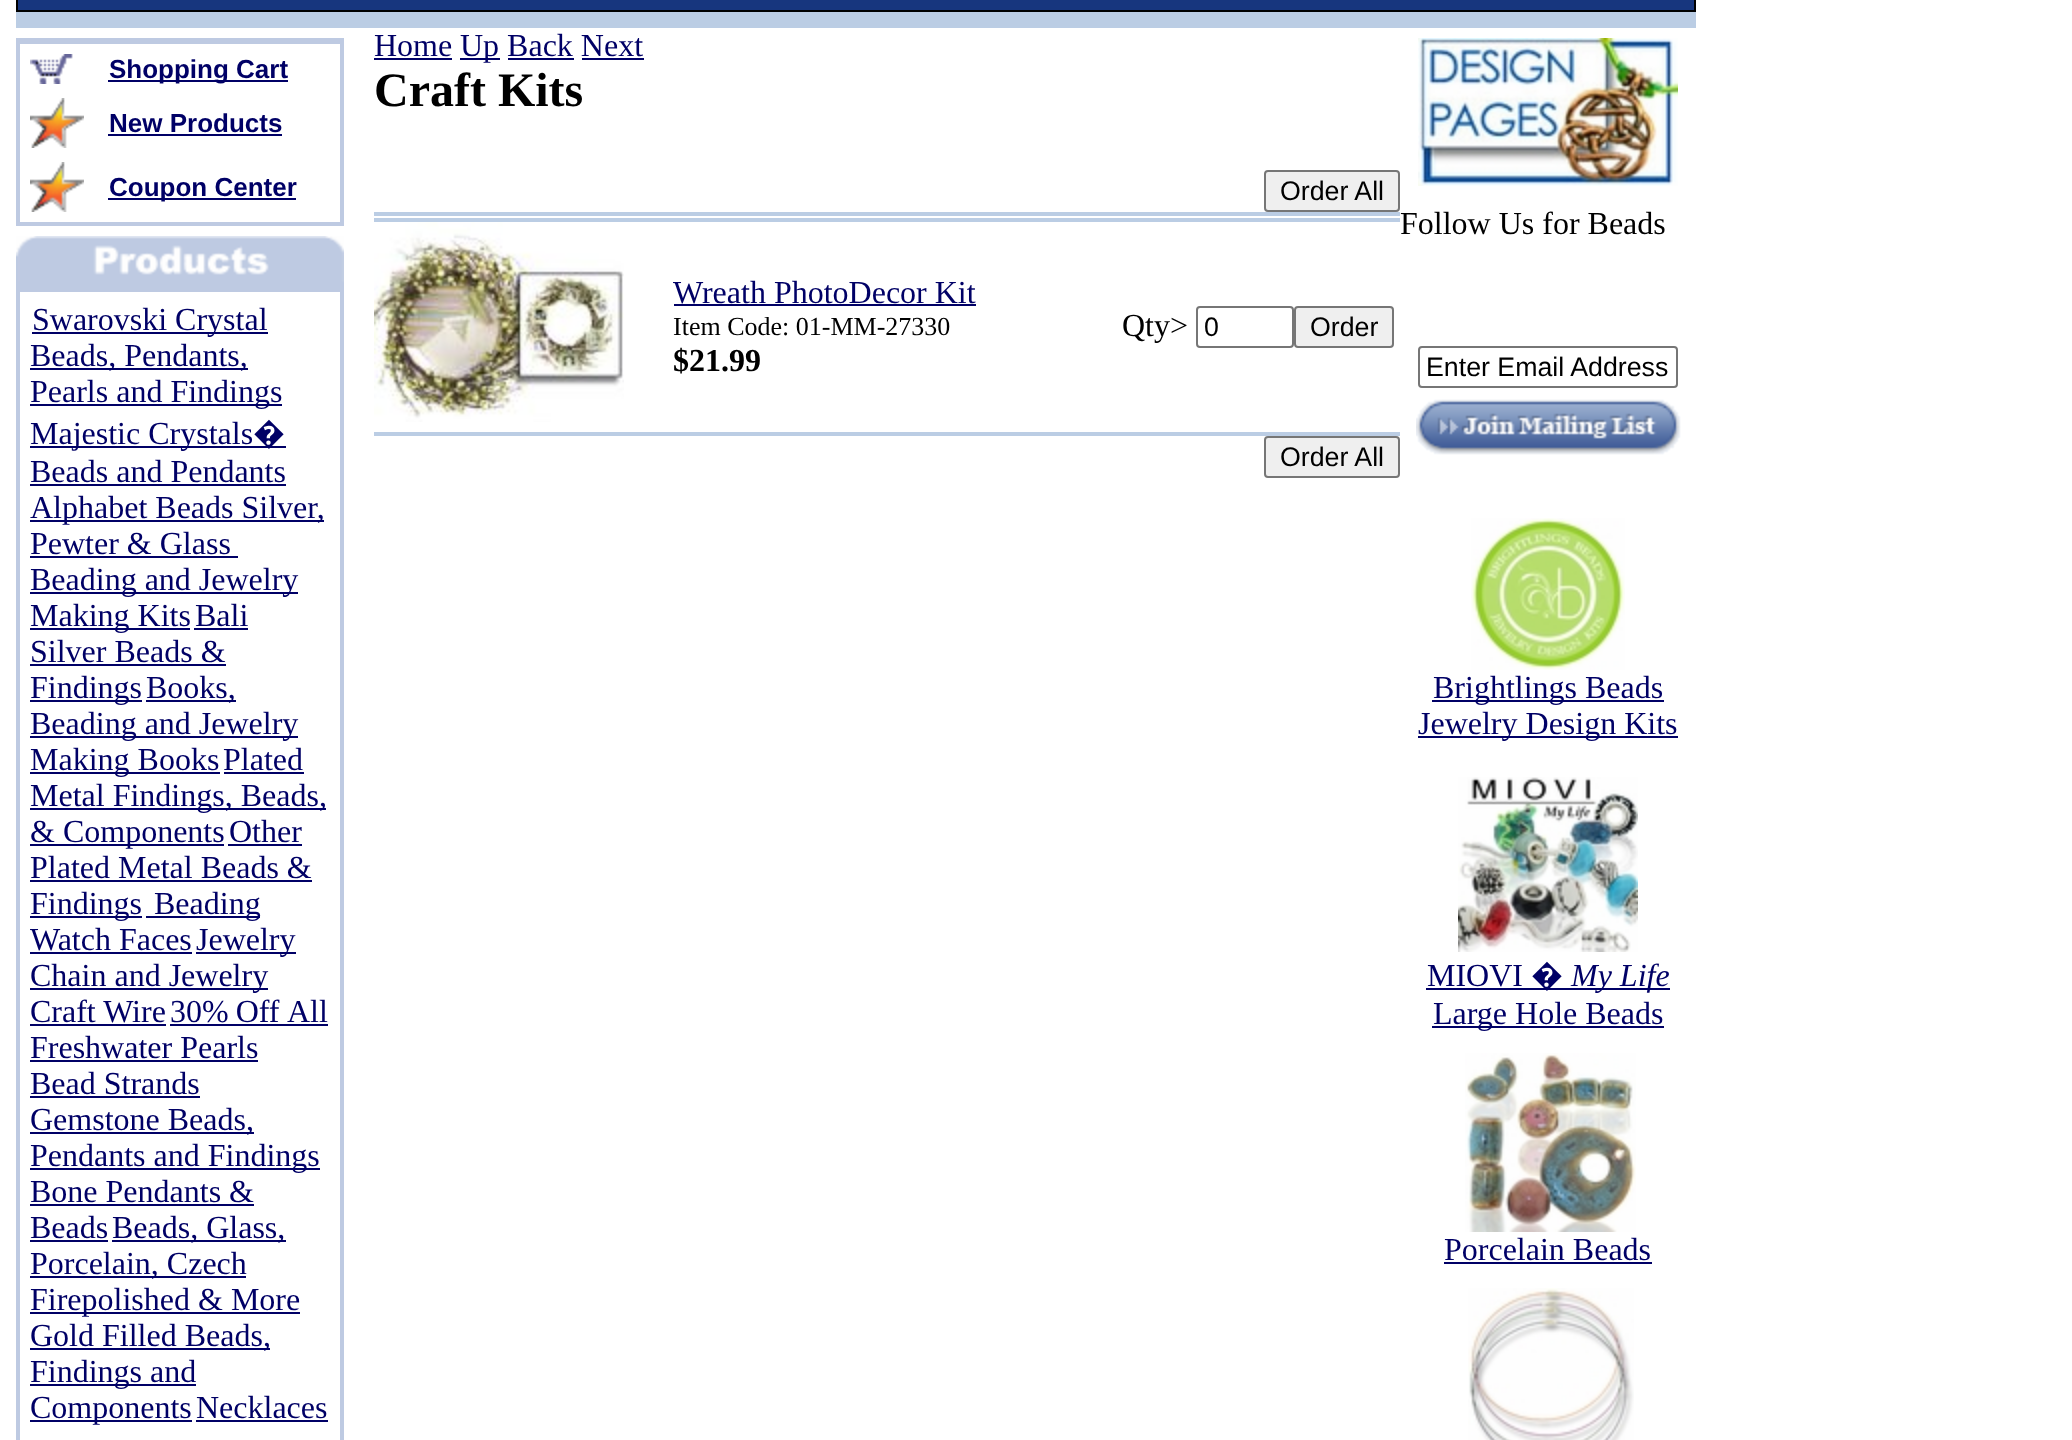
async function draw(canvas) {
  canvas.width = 2072;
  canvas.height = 1440;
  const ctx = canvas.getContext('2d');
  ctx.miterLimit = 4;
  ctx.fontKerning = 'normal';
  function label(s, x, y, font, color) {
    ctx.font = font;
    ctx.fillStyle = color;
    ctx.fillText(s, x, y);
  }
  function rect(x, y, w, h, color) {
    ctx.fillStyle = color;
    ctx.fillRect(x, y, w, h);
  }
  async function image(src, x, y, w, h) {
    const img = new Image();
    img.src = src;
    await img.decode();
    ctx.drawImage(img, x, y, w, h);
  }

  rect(0, 0, 2072, 1440, '#fff');
  rect(16, 0, 1680, 12, '#000');
  rect(18, 0, 1676, 10, '#17367e');
  rect(16, 12, 1680, 16, '#bbcde4');
  rect(16, 38, 328, 188, '#becae2');
  rect(20, 44, 320, 178, '#fff');
  await image('assets/img1.png', 30, 54, 43, 30);
  rect(108, 80, 180, 2, '#006');
  label('Shopping Cart', 109, 78, 'bold 26px Liberation Sans', '#006');
  await image('assets/img2.png', 30, 98, 54, 50);
  label('New Products', 109, 132, 'bold 26px Liberation Sans', '#006');
  rect(108, 134, 174, 2, '#006');
  await image('assets/img2.png', 30, 162, 54, 50);
  rect(108, 198, 188, 2, '#006');
  label('Coupon Center', 109, 196, 'bold 26px Liberation Sans', '#006');
  await image('assets/img3.png', 16, 236, 328, 50);
  rect(16, 286, 328, 1154, '#becae2');
  rect(20, 292, 320, 1148, '#fff');
  rect(32, 332, 236, 2, '#006');
  label('Swarovski Crystal', 32, 330, '32px Liberation Serif', '#006');
  rect(30, 368, 218, 2, '#006');
  label('Beads, Pendants,', 30, 366, '32px Liberation Serif', '#006');
  rect(30, 404, 252, 2, '#006');
  label('Pearls and Findings', 30, 402, '32px Liberation Serif', '#006');
  rect(30, 446, 256, 2, '#006');
  label('Majestic Crystals', 30, 444, '32px Liberation Serif', '#006');
  label('�', 253, 444, '32px Noto Sans', '#006');
  label('Beads and Pendants', 30, 482, '32px Liberation Serif', '#006');
  rect(30, 484, 256, 2, '#006');
  rect(30, 520, 294, 2, '#006');
  label('Alphabet Beads Silver,', 30, 518, '32px Liberation Serif', '#006');
  label('Pewter & Glass', 30, 554, '32px Liberation Serif', '#006');
  rect(30, 556, 208, 2, '#006');
  rect(30, 592, 268, 2, '#006');
  label('Beading and Jewelry', 30, 590, '32px Liberation Serif', '#006');
  rect(30, 628, 160, 2, '#006');
  label('Making Kits', 30, 626, '32px Liberation Serif', '#006');
  label('Bali', 195, 626, '32px Liberation Serif', '#006');
  rect(194, 628, 54, 2, '#006');
  label('Silver Beads &', 30, 662, '32px Liberation Serif', '#006');
  rect(30, 664, 196, 2, '#006');
  rect(30, 700, 112, 2, '#006');
  label('Findings', 30, 698, '32px Liberation Serif', '#006');
  rect(146, 700, 90, 2, '#006');
  label('Books,', 146, 698, '32px Liberation Serif', '#006');
  rect(30, 736, 268, 2, '#006');
  label('Beading and Jewelry', 30, 734, '32px Liberation Serif', '#006');
  rect(30, 772, 190, 2, '#006');
  label('Making Books', 30, 770, '32px Liberation Serif', '#006');
  label('Plated', 223, 770, '32px Liberation Serif', '#006');
  rect(224, 772, 80, 2, '#006');
  rect(30, 808, 296, 2, '#006');
  label('Metal Findings, Beads,', 30, 806, '32px Liberation Serif', '#006');
  rect(30, 844, 194, 2, '#006');
  label('& Components', 30, 842, '32px Liberation Serif', '#006');
  label('Other', 229, 842, '32px Liberation Serif', '#006');
  rect(228, 844, 74, 2, '#006');
  label('Plated Metal Beads &', 30, 878, '32px Liberation Serif', '#006');
  rect(30, 880, 282, 2, '#006');
  rect(30, 916, 112, 2, '#006');
  label('Findings', 30, 914, '32px Liberation Serif', '#006');
  rect(146, 916, 114, 2, '#006');
  label('Beading', 154, 914, '32px Liberation Serif', '#006');
  label('Watch Faces', 30, 950, '32px Liberation Serif', '#006');
  rect(30, 952, 162, 2, '#006');
  rect(196, 952, 100, 2, '#006');
  label('Jewelry', 196, 950, '32px Liberation Serif', '#006');
  rect(30, 988, 238, 2, '#006');
  label('Chain and Jewelry', 30, 986, '32px Liberation Serif', '#006');
  label('Craft Wire', 30, 1022, '32px Liberation Serif', '#006');
  rect(30, 1024, 136, 2, '#006');
  ctx.wordSpacing = '-1px';
  label('30% Off', 170, 1022, '32px Liberation Serif', '#006');
  rect(170, 1024, 158, 2, '#006');
  ctx.wordSpacing = '0px';
  label('All', 287, 1022, '32px Liberation Serif', '#006');
  label('Freshwater Pearls', 30, 1058, '32px Liberation Serif', '#006');
  rect(30, 1060, 228, 2, '#006');
  label('Bead Strands', 30, 1094, '32px Liberation Serif', '#006');
  rect(30, 1096, 170, 2, '#006');
  rect(30, 1132, 224, 2, '#006');
  label('Gemstone Beads,', 30, 1130, '32px Liberation Serif', '#006');
  rect(30, 1168, 290, 2, '#006');
  label('Pendants and Findings', 30, 1166, '32px Liberation Serif', '#006');
  label('Bone Pendants &', 30, 1202, '32px Liberation Serif', '#006');
  rect(30, 1204, 224, 2, '#006');
  label('Beads', 30, 1238, '32px Liberation Serif', '#006');
  rect(30, 1240, 78, 2, '#006');
  rect(112, 1240, 174, 2, '#006');
  label('Beads, Glass,', 112, 1238, '32px Liberation Serif', '#006');
  rect(30, 1276, 216, 2, '#006');
  label('Porcelain, Czech', 30, 1274, '32px Liberation Serif', '#006');
  rect(30, 1312, 270, 2, '#006');
  label('Firepolished & More', 30, 1310, '32px Liberation Serif', '#006');
  rect(30, 1348, 240, 2, '#006');
  label('Gold Filled Beads,', 30, 1346, '32px Liberation Serif', '#006');
  rect(30, 1384, 166, 2, '#006');
  label('Findings and', 30, 1382, '32px Liberation Serif', '#006');
  rect(30, 1420, 162, 2, '#006');
  label('Components', 30, 1418, '32px Liberation Serif', '#006');
  label('Necklaces', 196, 1418, '32px Liberation Serif', '#006');
  rect(196, 1420, 132, 2, '#006');
  label('Home', 374, 56, '32px Liberation Serif', '#006');
  rect(374, 58, 78, 2, '#006');
  rect(460, 58, 40, 2, '#006');
  label('Up Back Next', 460, 56, '32px Liberation Serif', '#006');
  rect(508, 58, 66, 2, '#006');
  rect(582, 58, 62, 2, '#006');
  label('Craft Kits', 374, 106, 'bold 48px Liberation Serif', '#000');
  ctx.fillStyle = '#efefef';
  ctx.beginPath();
  ctx.roundRect(1265, 171, 134, 40, 3);
  ctx.fill();
  ctx.strokeStyle = '#767676';
  ctx.lineWidth = 2;
  ctx.stroke();
  label('Order All', 1280, 200, '26.75px Liberation Sans', '#000');
  rect(374, 212, 1026, 4, '#bbcde4');
  rect(374, 218, 1026, 4, '#bbcde4');
  await image('assets/img4.png', 374, 222, 250, 200);
  label('Wreath PhotoDecor Kit', 673, 303, '32px Liberation Serif', '#006');
  rect(674, 304, 302, 2, '#006');
  label('Item Code: 01-MM-27330', 673, 335, '26px Liberation Serif', '#000');
  label('$21.99', 673, 371, 'bold 32px Liberation Serif', '#000');
  label('Qty>', 1122, 336, '32px Liberation Serif', '#000');
  ctx.beginPath();
  ctx.roundRect(1197, 307, 96, 40, 3);
  ctx.stroke();
  label('0', 1204, 336, '26.75px Liberation Sans', '#000');
  ctx.fillStyle = '#efefef';
  ctx.beginPath();
  ctx.roundRect(1295, 307, 98, 40, 3);
  ctx.fill();
  ctx.stroke();
  label('Order', 1310, 336, '26.75px Liberation Sans', '#000');
  rect(374, 432, 1026, 4, '#bbcde4');
  ctx.fillStyle = '#efefef';
  ctx.beginPath();
  ctx.roundRect(1265, 437, 134, 40, 3);
  ctx.fill();
  ctx.stroke();
  label('Order All', 1280, 466, '26.75px Liberation Sans', '#000');
  await image('assets/img5.png', 1418, 38, 260, 148);
  label('Follow Us for Beads', 1400, 234, '32px Liberation Serif', '#000');
  ctx.beginPath();
  ctx.roundRect(1419, 347, 258, 40, 3);
  ctx.stroke();
  label('Enter Email Address', 1426, 376, '26.75px Liberation Sans', '#000');
  await image('assets/img6.png', 1416, 399, 265, 56);
  await image('assets/img7.png', 1471, 518, 154, 152);
  rect(1432, 700, 232, 2, '#006');
  label('Brightlings Beads', 1433, 698, '32px Liberation Serif', '#006');
  rect(1418, 736, 260, 2, '#006');
  label('Jewelry Design Kits', 1418, 734, '32px Liberation Serif', '#006');
  await image('assets/img8.png', 1458, 777, 180, 175);
  label('MIOVI', 1427, 986, '32px Liberation Serif', '#006');
  rect(1426, 988, 244, 2, '#006');
  label('�', 1531, 986, '32px Noto Sans', '#006');
  label('My Life', 1571, 986, 'italic 32px Liberation Serif', '#006');
  rect(1432, 1026, 232, 2, '#006');
  label('Large Hole Beads', 1433, 1024, '32px Liberation Serif', '#006');
  await image('assets/img9.png', 1465, 1053, 171, 179);
  label('Porcelain Beads', 1444, 1260, '32px Liberation Serif', '#006');
  rect(1444, 1262, 208, 2, '#006');
  await image('assets/img10.png', 1468, 1288, 166, 152);
}

draw(document.querySelector('canvas'));
